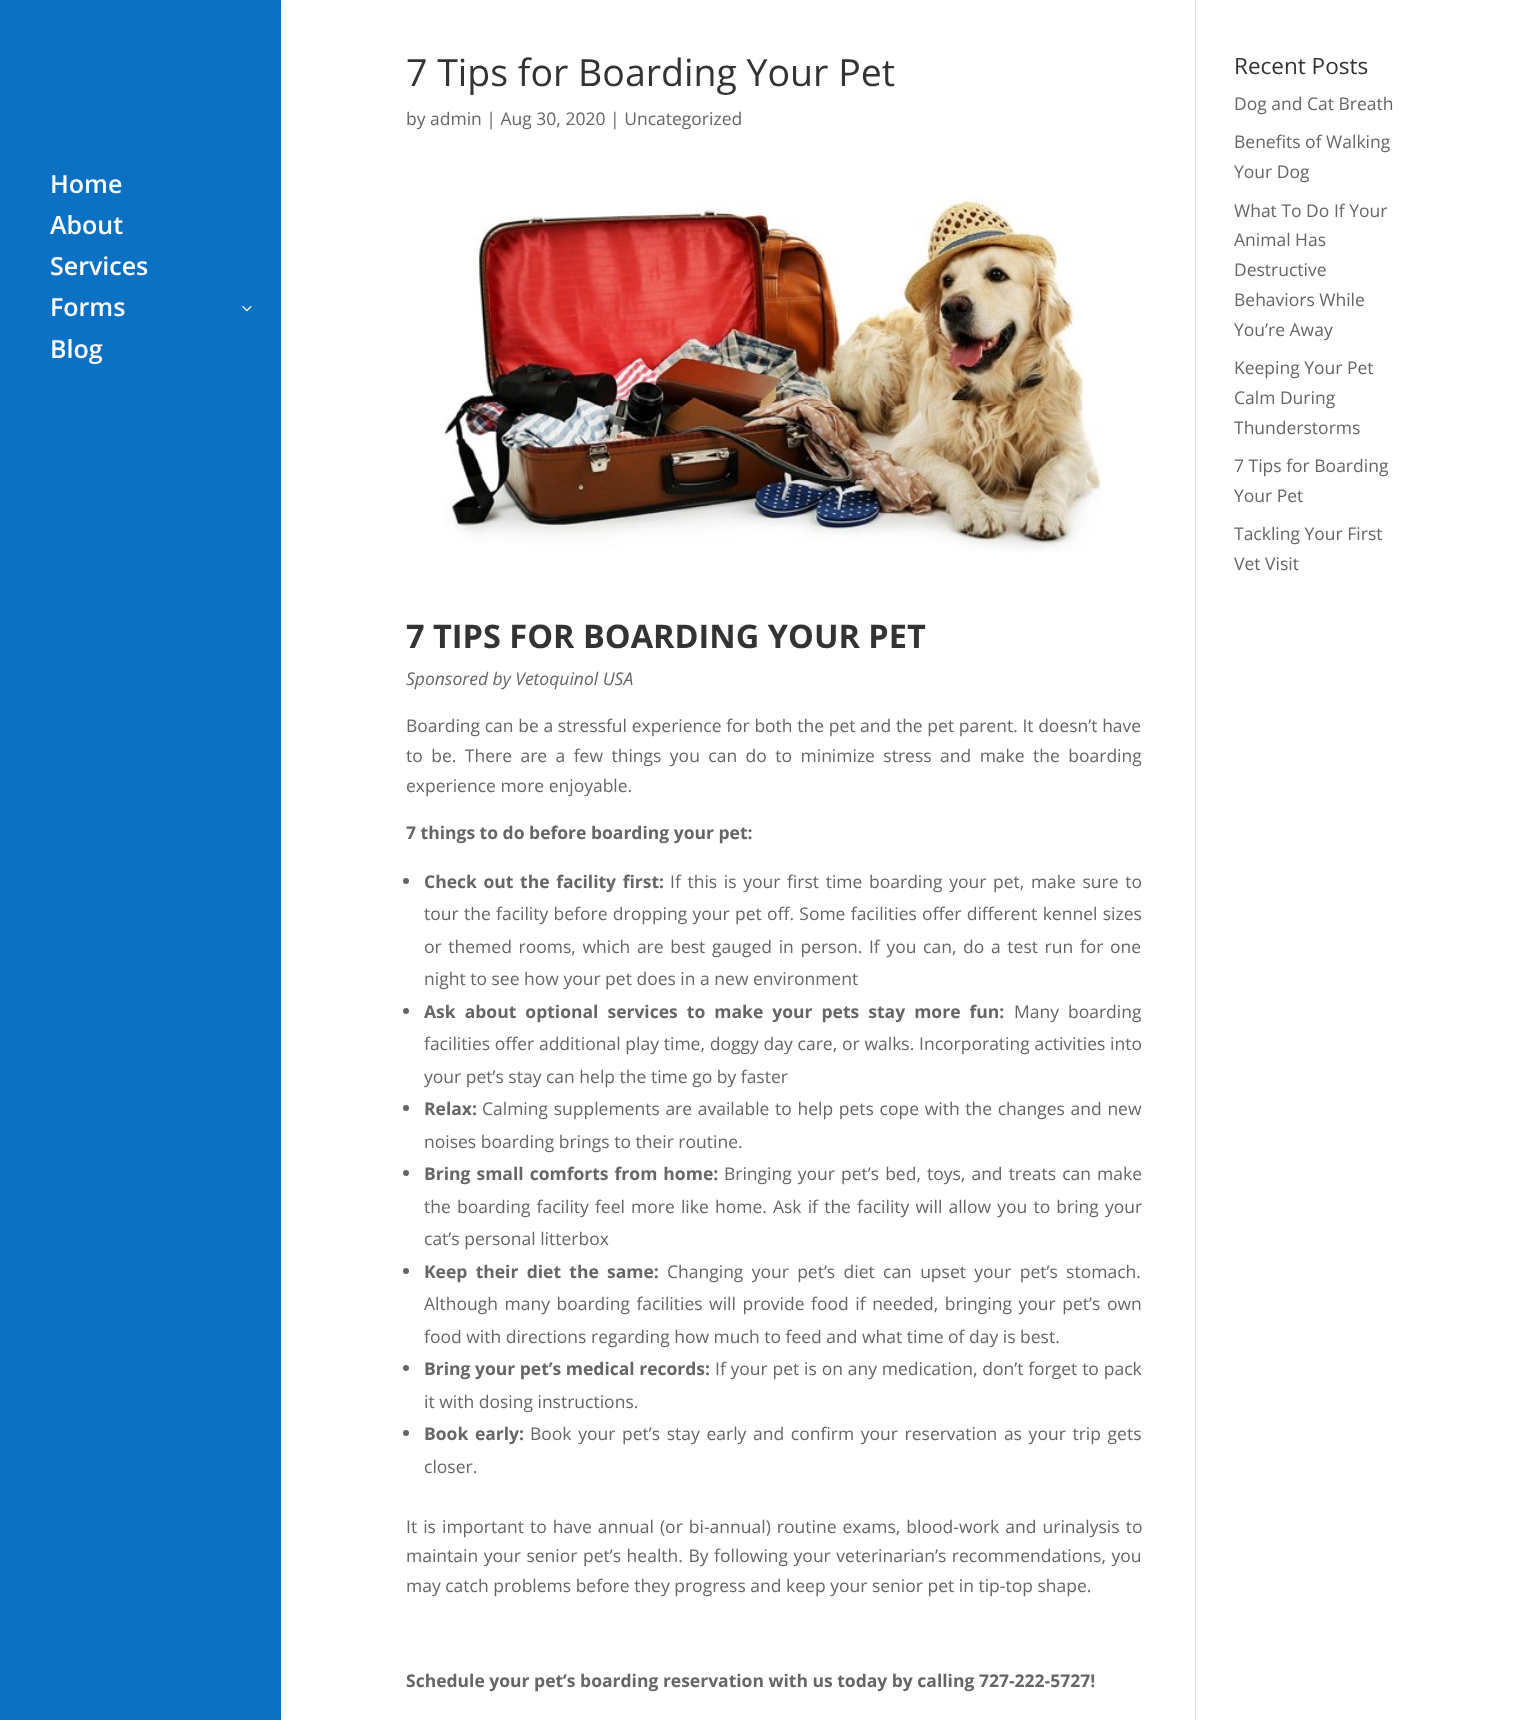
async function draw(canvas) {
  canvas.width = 1529;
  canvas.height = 1720;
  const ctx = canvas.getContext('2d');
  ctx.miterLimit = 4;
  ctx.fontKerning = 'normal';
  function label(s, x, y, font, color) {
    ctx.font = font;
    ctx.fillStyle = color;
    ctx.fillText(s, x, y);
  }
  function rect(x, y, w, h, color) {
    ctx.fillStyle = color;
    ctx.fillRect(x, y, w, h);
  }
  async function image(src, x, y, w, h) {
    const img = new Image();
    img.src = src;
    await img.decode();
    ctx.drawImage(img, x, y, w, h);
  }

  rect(0, 0, 1529, 1720, '#fff');
  ctx.fillStyle = '#0000001a';
  ctx.filter = 'blur(4.5px)';
  ctx.beginPath();
  ctx.rect(0, 0, 281, 1720);
  ctx.fill();
  ctx.filter = 'none';
  rect(0, 0, 281, 1720, '#0c71c3');
  label('Home', 50, 193, '600 25px Open Sans', '#fff');
  label('About', 50, 234, '600 25px Open Sans', '#fff');
  label('Services', 50, 275, '600 25px Open Sans', '#fff');
  label('Forms', 50, 316, '600 25px Open Sans', '#fff');
  await image('assets/img1.png', 242, 306, 10, 6);
  label('Blog', 50, 358, '600 25px Open Sans', '#fff');
  rect(1195, 0, 1, 1720, '#e2e2e2');
  label('7 Tips for Boarding Your Pet', 406, 86, '37.5px Open Sans', '#333');
  label('by admin | Aug 30, 2020 | Uncategorized', 406, 125, '17.5px Open Sans', '#666');
  await image('assets/img2.png', 444, 198, 658, 355);
  label('7 TIPS FOR BOARDING YOUR PET', 406, 648, 'bold 32.5px Open Sans', '#333');
  label('Sponsored by Vetoquinol USA', 406, 685, 'italic 17.5px Open Sans', '#666');
  ctx.wordSpacing = '0.1px';
  label('Boarding can be a stressful experience for both the pet and the pet parent. It doesn’t have', 406, 732, '17.5px Open Sans', '#666');
  ctx.wordSpacing = '3.9px';
  label('to be. There are a few things you can do to minimize stress and make the boarding', 406, 762, '17.5px Open Sans', '#666');
  ctx.wordSpacing = '0px';
  label('experience more enjoyable.', 406, 792, '17.5px Open Sans', '#666');
  label('7 things to do before boarding your pet:', 406, 839, 'bold 17.5px Open Sans', '#666');
  ctx.beginPath();
  ctx.arc(406, 881, 3, 0, 2 * Math.PI);
  ctx.fill();
  ctx.wordSpacing = '2.1px';
  label('Check out the facility first:', 424, 888, 'bold 17.5px Open Sans', '#666');
  label('If this is your first time boarding your pet, make sure to', 670, 888, '17.5px Open Sans', '#666');
  ctx.wordSpacing = '0.75px';
  label('tour the facility before dropping your pet off. Some facilities offer different kennel sizes', 424, 920, '17.5px Open Sans', '#666');
  ctx.wordSpacing = '2.1px';
  label('or themed rooms, which are best gauged in person. If you can, do a test run for one', 424, 953, '17.5px Open Sans', '#666');
  ctx.wordSpacing = '0px';
  label('night to see how your pet does in a new environment', 424, 985, '17.5px Open Sans', '#666');
  ctx.beginPath();
  ctx.arc(406, 1011, 3, 0, 2 * Math.PI);
  ctx.fill();
  ctx.wordSpacing = '4.5px';
  label('Ask about optional services to make your pets stay more fun:', 424, 1018, 'bold 17.5px Open Sans', '#666');
  label('Many boarding', 1014, 1018, '17.5px Open Sans', '#666');
  ctx.wordSpacing = '0.25px';
  label('facilities offer additional play time, doggy day care, or walks. Incorporating activities into', 424, 1050, '17.5px Open Sans', '#666');
  ctx.wordSpacing = '0px';
  label('your pet’s stay can help the time go by faster', 424, 1083, '17.5px Open Sans', '#666');
  ctx.beginPath();
  ctx.arc(406, 1108, 3, 0, 2 * Math.PI);
  ctx.fill();
  label('Relax:', 424, 1115, 'bold 17.5px Open Sans', '#666');
  ctx.wordSpacing = '1.1px';
  label('Calming supplements are available to help pets cope with the changes and new', 482, 1115, '17.5px Open Sans', '#666');
  ctx.wordSpacing = '0px';
  label('noises boarding brings to their routine.', 424, 1148, '17.5px Open Sans', '#666');
  ctx.beginPath();
  ctx.arc(406, 1173, 3, 0, 2 * Math.PI);
  ctx.fill();
  ctx.wordSpacing = '1.5px';
  label('Bring small comforts from home:', 424, 1180, 'bold 17.5px Open Sans', '#666');
  label('Bringing your pet’s bed, toys, and treats can make', 724, 1180, '17.5px Open Sans', '#666');
  ctx.wordSpacing = '1.6px';
  label('the boarding facility feel more like home. Ask if the facility will allow you to bring your', 424, 1213, '17.5px Open Sans', '#666');
  ctx.wordSpacing = '0px';
  label('cat’s personal litterbox', 424, 1245, '17.5px Open Sans', '#666');
  ctx.beginPath();
  ctx.arc(406, 1271, 3, 0, 2 * Math.PI);
  ctx.fill();
  ctx.wordSpacing = '3.75px';
  label('Keep their diet the same:', 424, 1278, 'bold 17.5px Open Sans', '#666');
  label('Changing your pet’s diet can upset your pet’s stomach.', 667, 1278, '17.5px Open Sans', '#666');
  ctx.wordSpacing = '2px';
  label('Although many boarding facilities will provide food if needed, bringing your pet’s own', 424, 1310, '17.5px Open Sans', '#666');
  ctx.wordSpacing = '0px';
  label('food with directions regarding how much to feed and what time of day is best.', 424, 1343, '17.5px Open Sans', '#666');
  ctx.beginPath();
  ctx.arc(406, 1368, 3, 0, 2 * Math.PI);
  ctx.fill();
  label('Bring your pet’s medical records:', 424, 1375, 'bold 17.5px Open Sans', '#666');
  ctx.wordSpacing = '0.25px';
  label('If your pet is on any medication, don’t forget to pack', 715, 1375, '17.5px Open Sans', '#666');
  ctx.wordSpacing = '0px';
  label('it with dosing instructions.', 424, 1408, '17.5px Open Sans', '#666');
  ctx.beginPath();
  ctx.arc(406, 1433, 3, 0, 2 * Math.PI);
  ctx.fill();
  ctx.wordSpacing = '2.1px';
  label('Book early:', 424, 1440, 'bold 17.5px Open Sans', '#666');
  label('Book your pet’s stay early and confirm your reservation as your trip gets', 530, 1440, '17.5px Open Sans', '#666');
  ctx.wordSpacing = '0px';
  label('closer.', 424, 1473, '17.5px Open Sans', '#666');
  ctx.wordSpacing = '1.5px';
  label('It is important to have annual (or bi-annual) routine exams, blood-work and urinalysis to', 406, 1533, '17.5px Open Sans', '#666');
  ctx.wordSpacing = '1px';
  label('maintain your senior pet’s health. By following your veterinarian’s recommendations, you', 406, 1562, '17.5px Open Sans', '#666');
  ctx.wordSpacing = '0px';
  label('may catch problems before they progress and keep your senior pet in tip-top shape.', 406, 1592, '17.5px Open Sans', '#666');
  label('Schedule your pet’s boarding reservation with us today by calling 727-222-5727!', 406, 1687, 'bold 17.5px Open Sans', '#666');
  label('Recent Posts', 1234, 74, '22.5px Open Sans', '#333');
  label('Dog and Cat Breath', 1234, 110, '17.5px Open Sans', '#666');
  label('Benefits of Walking', 1234, 148, '17.5px Open Sans', '#666');
  label('Your Dog', 1234, 178, '17.5px Open Sans', '#666');
  label('What To Do If Your', 1234, 217, '17.5px Open Sans', '#666');
  label('Animal Has', 1234, 246, '17.5px Open Sans', '#666');
  label('Destructive', 1234, 276, '17.5px Open Sans', '#666');
  label('Behaviors While', 1234, 306, '17.5px Open Sans', '#666');
  label('You’re Away', 1234, 336, '17.5px Open Sans', '#666');
  label('Keeping Your Pet', 1234, 374, '17.5px Open Sans', '#666');
  label('Calm During', 1234, 404, '17.5px Open Sans', '#666');
  label('Thunderstorms', 1234, 434, '17.5px Open Sans', '#666');
  label('7 Tips for Boarding', 1234, 472, '17.5px Open Sans', '#666');
  label('Your Pet', 1234, 502, '17.5px Open Sans', '#666');
  label('Tackling Your First', 1234, 540, '17.5px Open Sans', '#666');
  label('Vet Visit', 1234, 570, '17.5px Open Sans', '#666');
}

draw(document.querySelector('canvas'));
